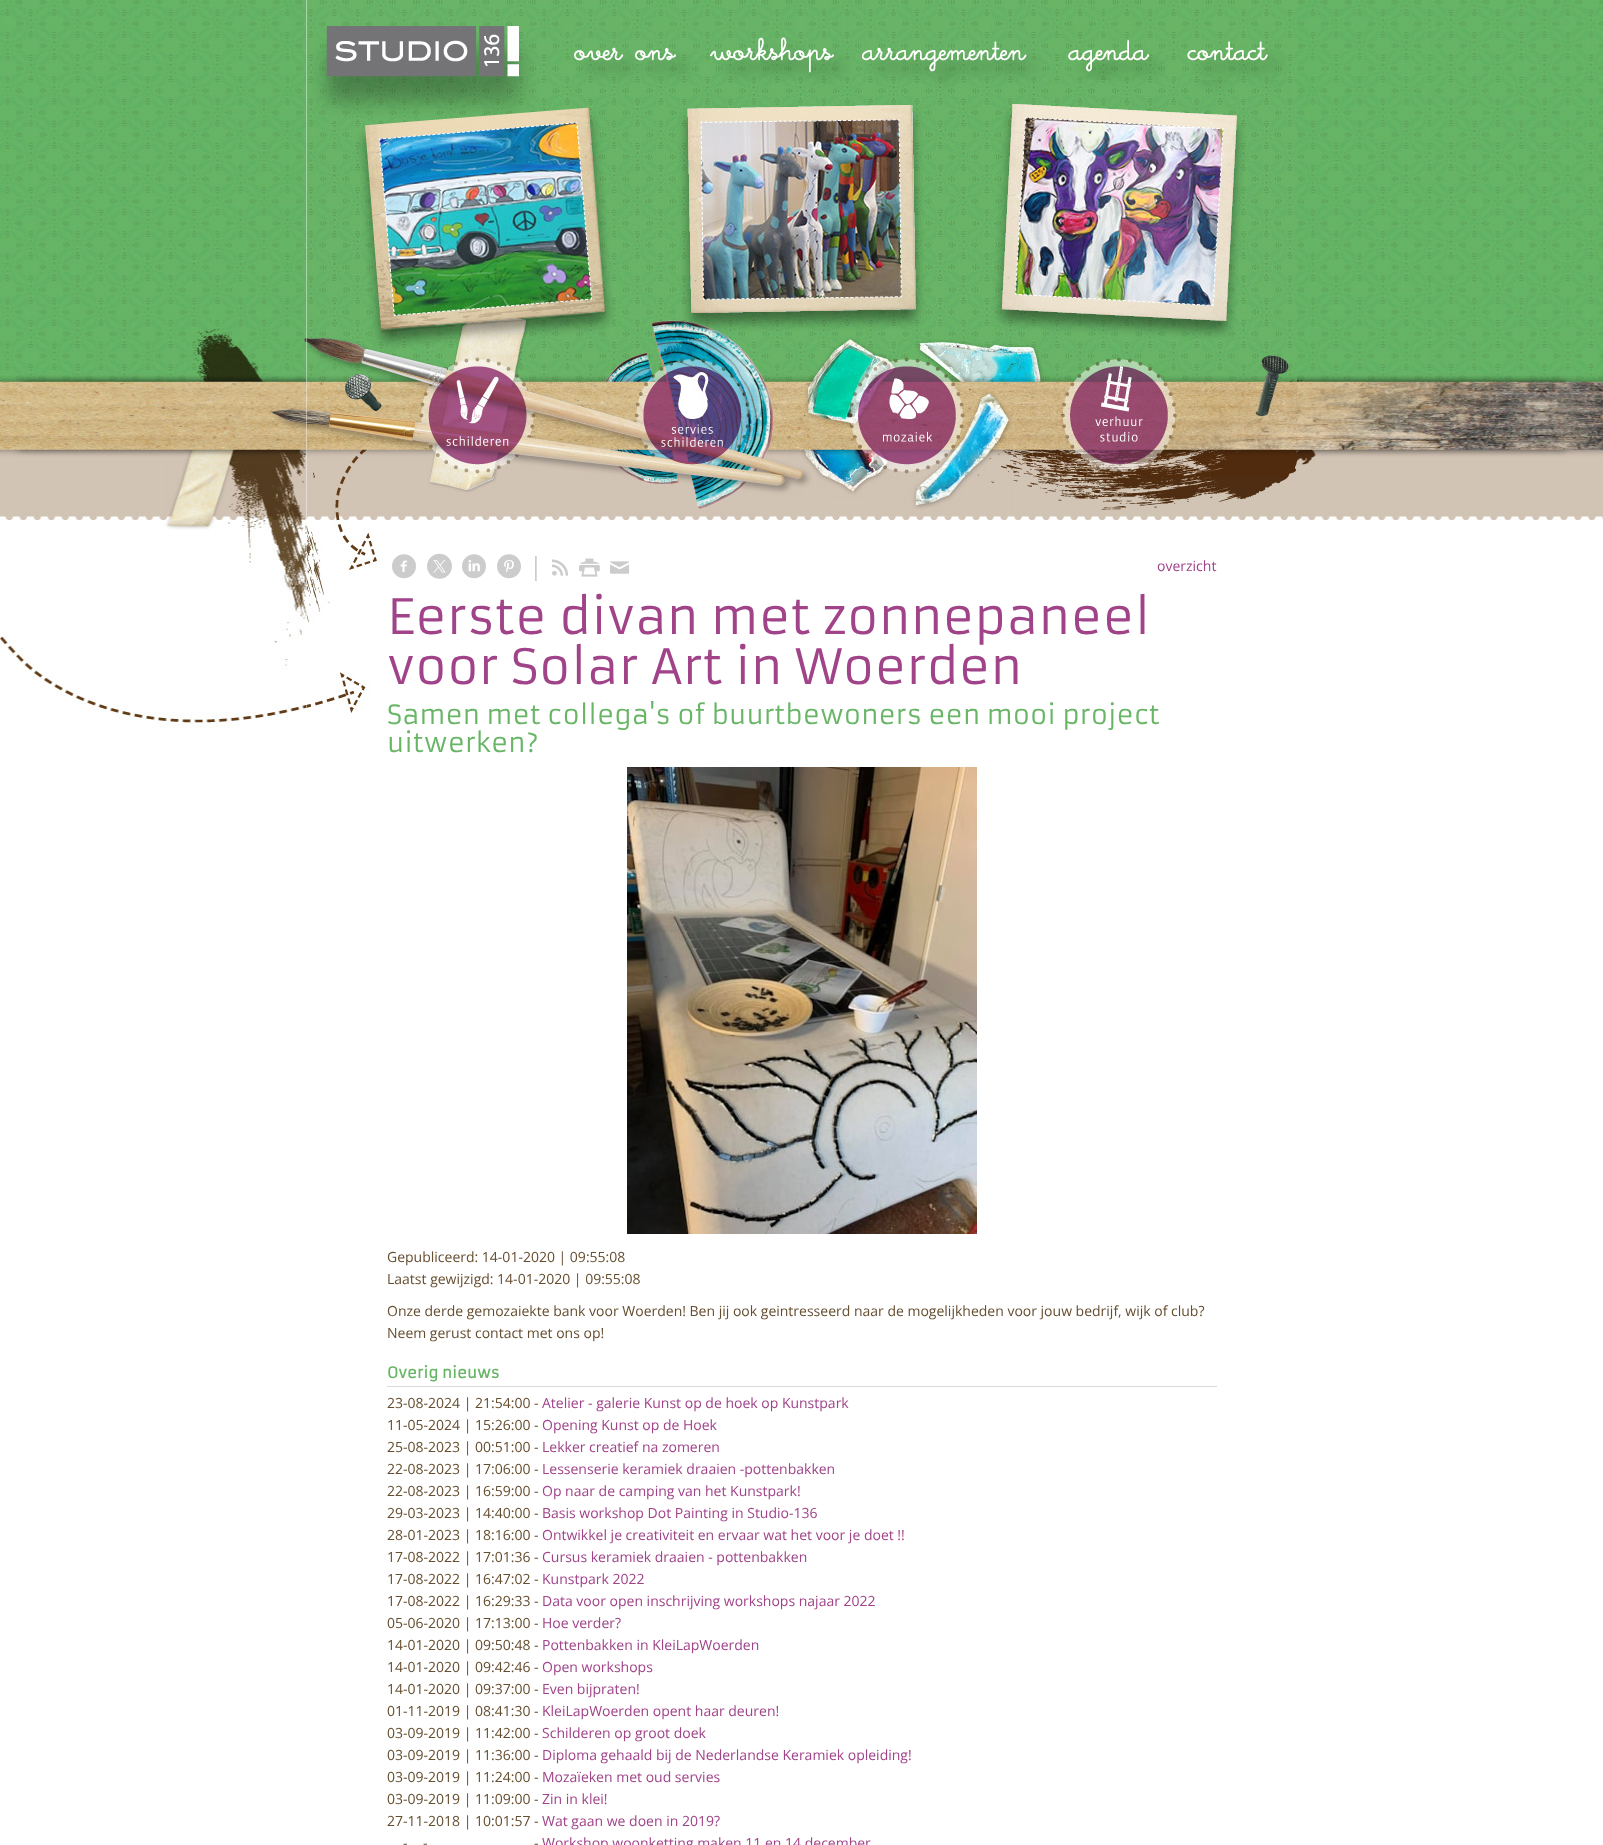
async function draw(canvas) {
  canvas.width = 1603;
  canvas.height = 1845;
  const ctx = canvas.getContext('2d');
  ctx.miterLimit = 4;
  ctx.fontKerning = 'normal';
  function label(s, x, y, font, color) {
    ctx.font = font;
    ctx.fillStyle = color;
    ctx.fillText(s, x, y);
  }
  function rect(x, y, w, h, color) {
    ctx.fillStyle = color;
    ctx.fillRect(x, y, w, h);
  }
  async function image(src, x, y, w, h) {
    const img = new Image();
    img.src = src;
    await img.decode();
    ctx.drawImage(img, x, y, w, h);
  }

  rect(0, 0, 1603, 1845, '#fff');
  await image('assets/img1.png', 0, 0, 1603, 728);
  await image('assets/img2.png', 307, 80, 990, 640);
  await image('assets/img3.png', 307, 0, 242, 80);
  await image('assets/img4.png', 549, 0, 143, 80);
  await image('assets/img5.png', 692, 0, 154, 80);
  await image('assets/img6.png', 846, 0, 204, 80);
  await image('assets/img7.png', 1050, 0, 120, 80);
  await image('assets/img8.png', 1170, 0, 127, 80);
  await image('assets/img9.png', 307, 92, 20, 26);
  await image('assets/img10.png', 309, 123, 18, 35);
  await image('assets/img11.png', 307, 160, 20, 40);
  await image('assets/img12.png', 307, 200, 20, 159);
  await image('assets/img13.png', 327, 80, 950, 279);
  await image('assets/img14.png', 1277, 80, 20, 40);
  await image('assets/img15.png', 1277, 120, 20, 40);
  await image('assets/img16.png', 1277, 160, 20, 40);
  await image('assets/img17.png', 1277, 200, 20, 159);
  await image('assets/img18.png', 307, 359, 112, 119);
  await image('assets/img19.png', 419, 359, 169, 119);
  await image('assets/img20.png', 588, 359, 224, 119);
  await image('assets/img21.png', 812, 359, 203, 119);
  await image('assets/img22.png', 1015, 359, 164, 119);
  await image('assets/img23.png', 1179, 359, 118, 119);
  await image('assets/img24.png', 392, 554, 24, 25);
  await image('assets/img25.png', 427, 553, 25, 26);
  await image('assets/img26.png', 462, 554, 24, 25);
  await image('assets/img27.png', 497, 554, 24, 25);
  label('|', 529, 575, '25px Open Sans', '#ccc');
  await image('assets/img28.png', 552, 559, 17, 17);
  await image('assets/img29.png', 579, 558, 21, 19);
  await image('assets/img30.png', 610, 561, 20, 13);
  label('overzicht', 1157, 571, '14px Open Sans', '#a04389');
  label('Eerste divan met zonnepaneel', 387, 634, '48px Armata', '#a04389');
  label('voor Solar Art in Woerden', 387, 684, '48px Armata', '#a04389');
  label('Samen met collega\'s of buurtbewoners een mooi project', 387, 724, '26px Armata', '#67b565');
  label('uitwerken?', 387, 752, '26px Armata', '#67b565');
  await image('assets/img31.png', 627, 767, 350, 467);
  label('Gepubliceerd: 14-01-2020 | 09:55:08', 387, 1262, '14px Open Sans', '#654d2f');
  label('Laatst gewijzigd: 14-01-2020 | 09:55:08', 387, 1284, '14px Open Sans', '#654d2f');
  label('Onze derde gemozaiekte bank voor Woerden! Ben jij ook geintresseerd naar de mogelijkheden voor jouw bedrijf, wijk of club?', 387, 1316, '14px Open Sans', '#654d2f');
  label('Neem gerust contact met ons op!', 387, 1338, '14px Open Sans', '#654d2f');
  label('Overig nieuws', 387, 1378, 'bold 15px Armata', '#67b565');
  rect(387, 1386, 830, 1, '#dadada');
  label('23-08-2024 | 21:54:00 -', 387, 1408, '14px Open Sans', '#654d2f');
  label('Atelier - galerie Kunst op de hoek op Kunstpark', 542, 1408, '14px Open Sans', '#a04389');
  label('11-05-2024 | 15:26:00 -', 387, 1430, '14px Open Sans', '#654d2f');
  label('Opening Kunst op de Hoek', 542, 1430, '14px Open Sans', '#a04389');
  label('25-08-2023 | 00:51:00 -', 387, 1452, '14px Open Sans', '#654d2f');
  label('Lekker creatief na zomeren', 542, 1452, '14px Open Sans', '#a04389');
  label('22-08-2023 | 17:06:00 -', 387, 1474, '14px Open Sans', '#654d2f');
  label('Lessenserie keramiek draaien -pottenbakken', 542, 1474, '14px Open Sans', '#a04389');
  label('22-08-2023 | 16:59:00 -', 387, 1496, '14px Open Sans', '#654d2f');
  label('Op naar de camping van het Kunstpark!', 542, 1496, '14px Open Sans', '#a04389');
  label('29-03-2023 | 14:40:00 -', 387, 1518, '14px Open Sans', '#654d2f');
  label('Basis workshop Dot Painting in Studio-136', 542, 1518, '14px Open Sans', '#a04389');
  label('28-01-2023 | 18:16:00 -', 387, 1540, '14px Open Sans', '#654d2f');
  label('Ontwikkel je creativiteit en ervaar wat het voor je doet !!', 542, 1540, '14px Open Sans', '#a04389');
  label('17-08-2022 | 17:01:36 -', 387, 1562, '14px Open Sans', '#654d2f');
  label('Cursus keramiek draaien - pottenbakken', 542, 1562, '14px Open Sans', '#a04389');
  label('17-08-2022 | 16:47:02 -', 387, 1584, '14px Open Sans', '#654d2f');
  label('Kunstpark 2022', 542, 1584, '14px Open Sans', '#a04389');
  label('17-08-2022 | 16:29:33 -', 387, 1606, '14px Open Sans', '#654d2f');
  label('Data voor open inschrijving workshops najaar 2022', 542, 1606, '14px Open Sans', '#a04389');
  label('05-06-2020 | 17:13:00 -', 387, 1628, '14px Open Sans', '#654d2f');
  label('Hoe verder?', 542, 1628, '14px Open Sans', '#a04389');
  label('14-01-2020 | 09:50:48 -', 387, 1650, '14px Open Sans', '#654d2f');
  label('Pottenbakken in KleiLapWoerden', 542, 1650, '14px Open Sans', '#a04389');
  label('14-01-2020 | 09:42:46 -', 387, 1672, '14px Open Sans', '#654d2f');
  label('Open workshops', 542, 1672, '14px Open Sans', '#a04389');
  label('14-01-2020 | 09:37:00 -', 387, 1694, '14px Open Sans', '#654d2f');
  label('Even bijpraten!', 542, 1694, '14px Open Sans', '#a04389');
  label('01-11-2019 | 08:41:30 -', 387, 1716, '14px Open Sans', '#654d2f');
  label('KleiLapWoerden opent haar deuren!', 542, 1716, '14px Open Sans', '#a04389');
  label('03-09-2019 | 11:42:00 -', 387, 1738, '14px Open Sans', '#654d2f');
  label('Schilderen op groot doek', 542, 1738, '14px Open Sans', '#a04389');
  label('03-09-2019 | 11:36:00 -', 387, 1760, '14px Open Sans', '#654d2f');
  label('Diploma gehaald bij de Nederlandse Keramiek opleiding!', 542, 1760, '14px Open Sans', '#a04389');
  label('03-09-2019 | 11:24:00 -', 387, 1782, '14px Open Sans', '#654d2f');
  label('Mozaïeken met oud servies', 542, 1782, '14px Open Sans', '#a04389');
  label('03-09-2019 | 11:09:00 -', 387, 1804, '14px Open Sans', '#654d2f');
  label('Zin in klei!', 542, 1804, '14px Open Sans', '#a04389');
  label('27-11-2018 | 10:01:57 -', 387, 1826, '14px Open Sans', '#654d2f');
  label('Wat gaan we doen in 2019?', 542, 1826, '14px Open Sans', '#a04389');
  label('-', 403, 1848, '14px Open Sans', '#654d2f');
  label('-', 423, 1848, '14px Open Sans', '#654d2f');
  label('-', 534, 1848, '14px Open Sans', '#654d2f');
  label('Workshop woonketting maken 11 en 14 december', 542, 1848, '14px Open Sans', '#a04389');
}

draw(document.querySelector('canvas'));
